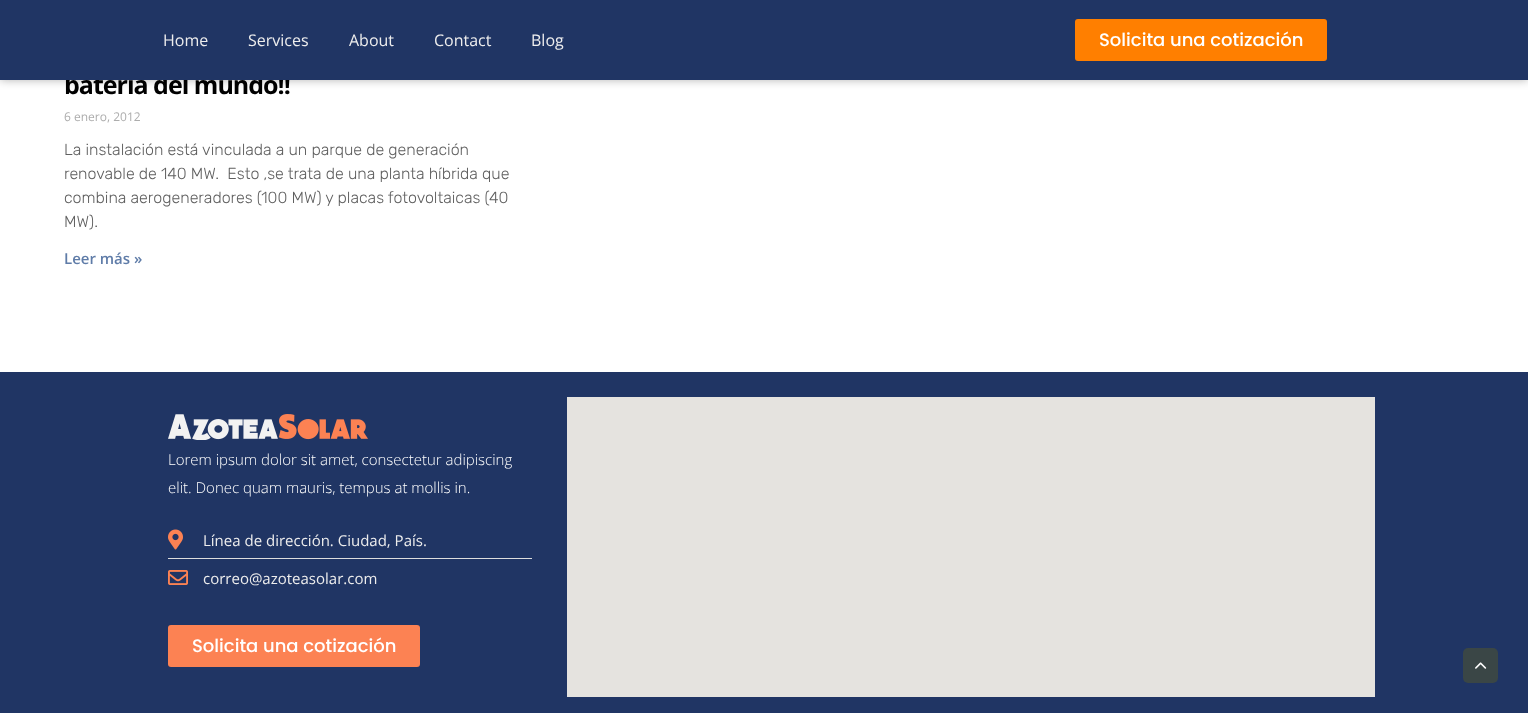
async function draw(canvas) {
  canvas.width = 1528;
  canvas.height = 713;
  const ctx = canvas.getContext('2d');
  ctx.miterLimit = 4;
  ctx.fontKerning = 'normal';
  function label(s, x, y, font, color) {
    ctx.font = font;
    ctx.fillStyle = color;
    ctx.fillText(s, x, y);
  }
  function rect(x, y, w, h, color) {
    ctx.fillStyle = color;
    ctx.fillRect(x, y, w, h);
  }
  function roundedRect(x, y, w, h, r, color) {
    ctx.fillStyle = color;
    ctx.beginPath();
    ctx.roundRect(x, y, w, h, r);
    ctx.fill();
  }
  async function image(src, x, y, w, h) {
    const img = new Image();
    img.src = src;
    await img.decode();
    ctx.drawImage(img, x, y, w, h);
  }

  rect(0, 0, 1528, 713, '#fff');
  ctx.fillStyle = '#0000004d';
  ctx.filter = 'blur(5px)';
  ctx.beginPath();
  ctx.rect(0, 0, 1528, 80);
  ctx.fill();
  ctx.filter = 'none';
  ctx.letterSpacing = '-1px';
  label('batería del mundo!!', 64, 94, 'bold 25px Open Sans', '#000');
  rect(0, 0, 1528, 80, '#203564');
  ctx.letterSpacing = '0px';
  label('Home', 163, 46, '16px Open Sans', '#ededed');
  label('Services', 248, 46, '16px Open Sans', '#ededed');
  label('About', 349, 46, '16px Open Sans', '#ededed');
  label('Contact', 434, 46, '16px Open Sans', '#ededed');
  label('Blog', 531, 46, '16px Open Sans', '#ededed');
  roundedRect(1075, 19, 252, 42, 3, '#ff7f00');
  label('Solicita una cotización', 1099, 46, '500 18px Poppins', '#fff');
  label('6 enero, 2012', 64, 121, '12px Open Sans', '#adadad');
  label('La instalación está vinculada a un parque de generación', 64, 155, '300 16px Rubik', '#5f5f5f');
  label('renovable de 140 MW.  Esto ,se trata de una planta híbrida que', 64, 179, '300 16px Rubik', '#5f5f5f');
  label('combina aerogeneradores (100 MW) y placas fotovoltaicas (40', 64, 203, '300 16px Rubik', '#5f5f5f');
  label('MW).', 64, 227, '300 16px Rubik', '#5f5f5f');
  label('Leer más »', 64, 264, '600 15px Open Sans', '#5f7ca8');
  rect(0, 372, 1528, 341, '#203564');
  await image('assets/img1.png', 168, 414, 200, 26);
  label('Lorem ipsum dolor sit amet, consectetur adipiscing', 168, 465, '300 15px Open Sans', '#fff');
  label('elit. Donec quam mauris, tempus at mollis in.', 168, 493, '300 15px Open Sans', '#fff');
  await image('assets/img2.png', 168, 529, 15, 21);
  label('Línea de dirección. Ciudad, País.', 203, 546, '15px Open Sans', '#ededed');
  rect(168, 558, 364, 1, '#ddd');
  await image('assets/img3.png', 168, 570, 20, 15);
  label('correo@azoteasolar.com', 203, 584, '15px Open Sans', '#ededed');
  roundedRect(168, 625, 252, 42, 3, '#fc8253');
  label('Solicita una cotización', 192, 652, '500 18px Poppins', '#fff');
  rect(567, 397, 808, 300, '#e5e3df');
  roundedRect(1463, 648, 35, 35, 5, '#3a4646');
  await image('assets/img4.png', 1475, 662, 12, 7);
}

draw(document.querySelector('canvas'));
